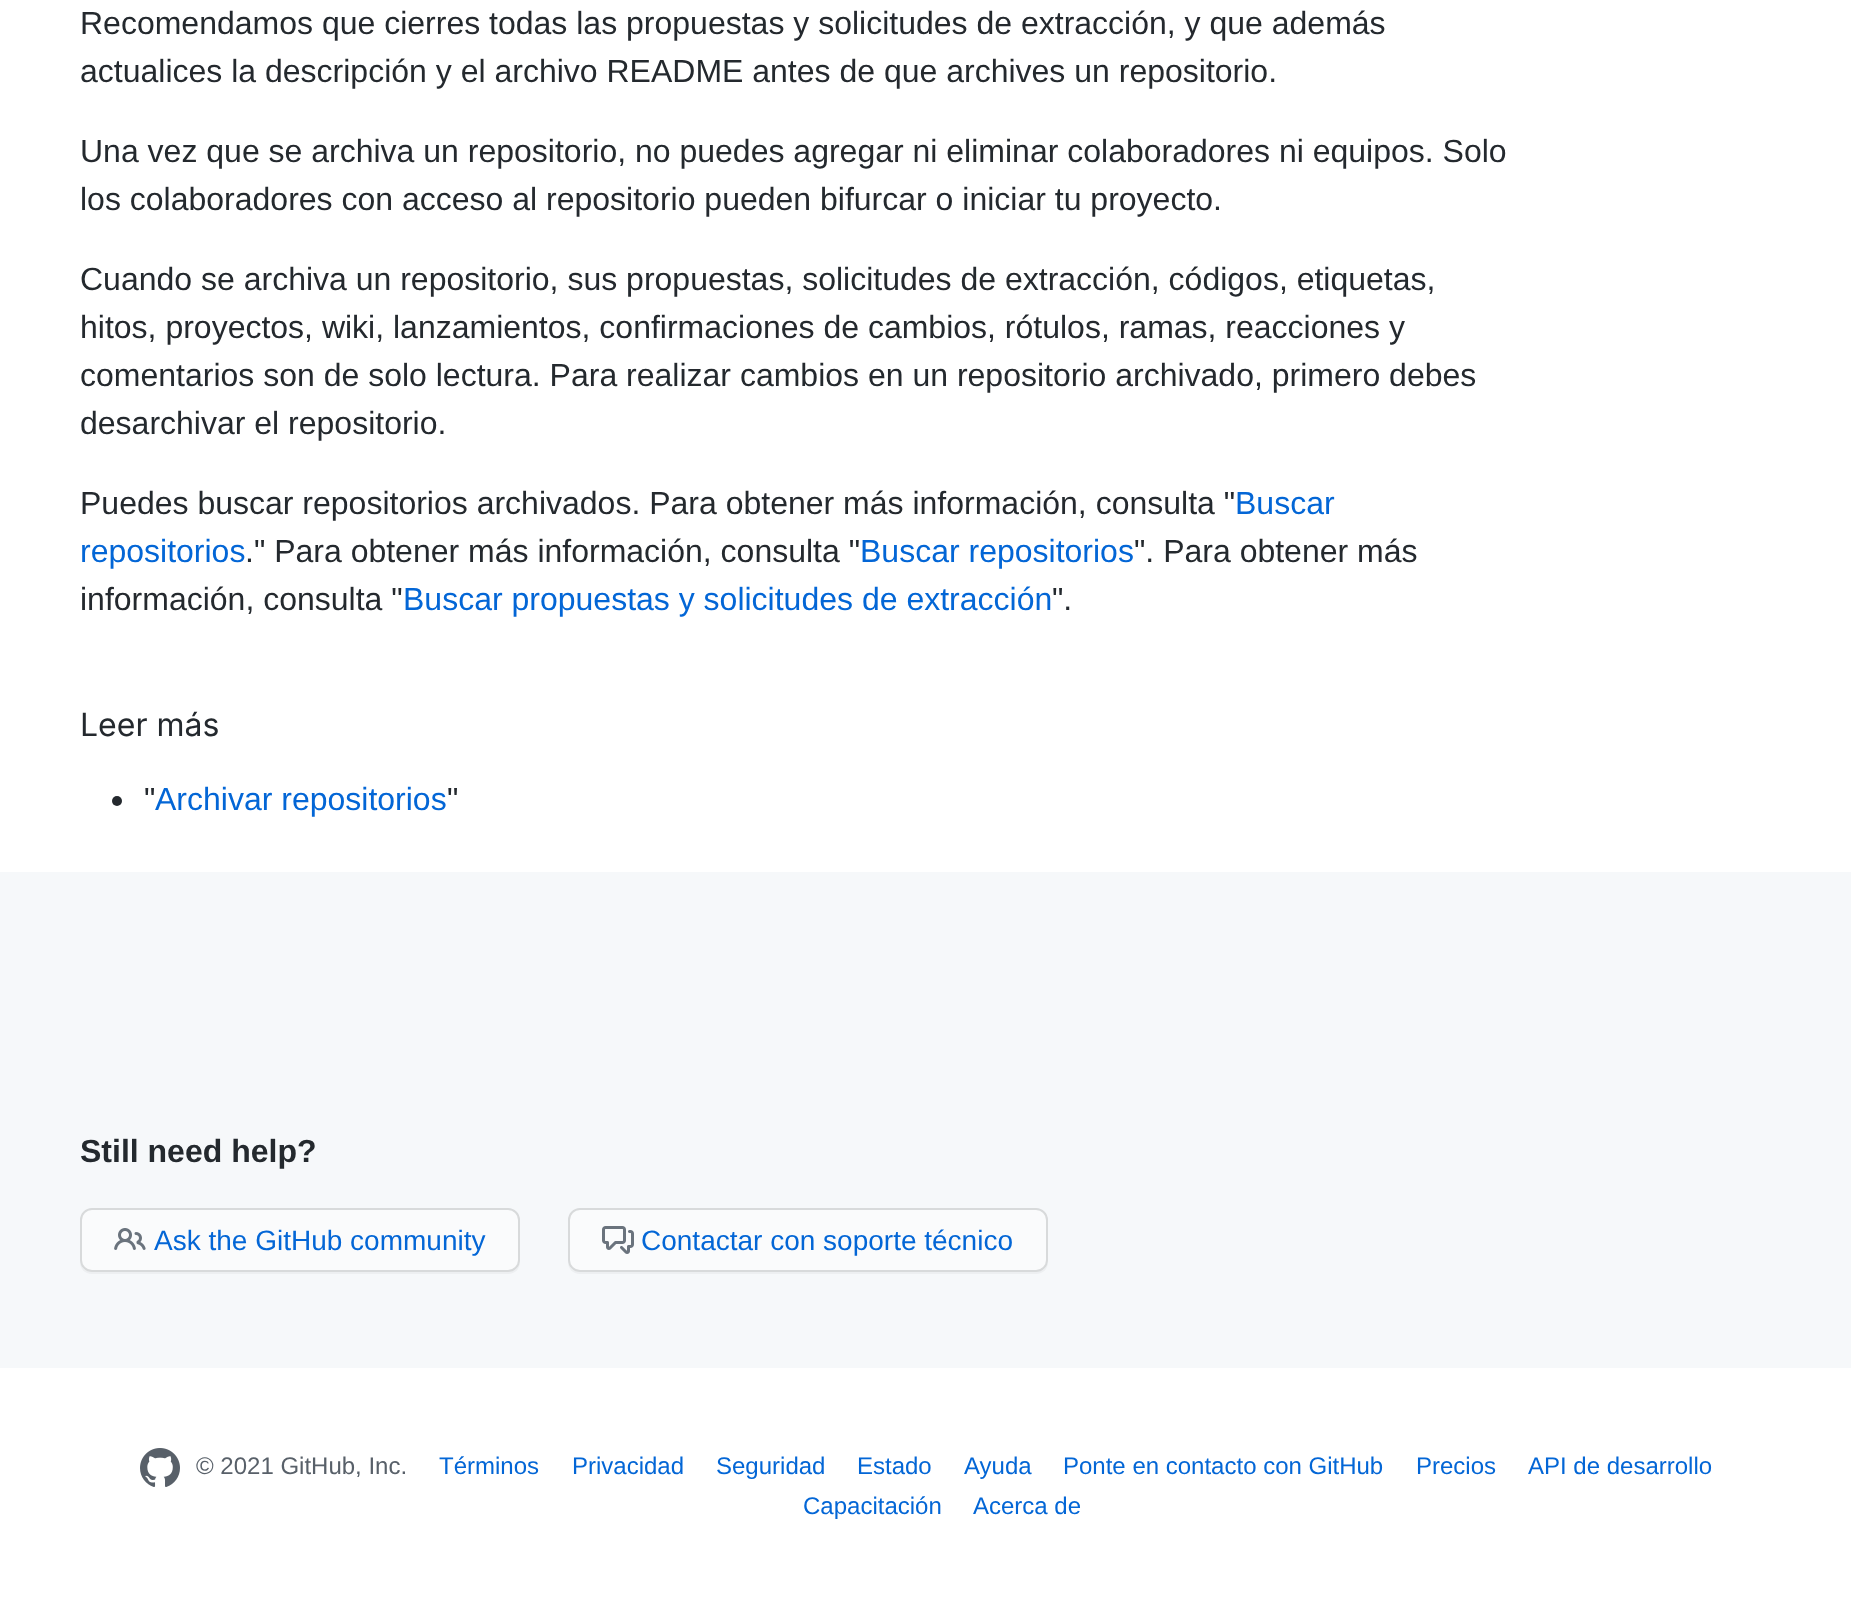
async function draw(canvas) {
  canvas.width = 1851;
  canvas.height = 1604;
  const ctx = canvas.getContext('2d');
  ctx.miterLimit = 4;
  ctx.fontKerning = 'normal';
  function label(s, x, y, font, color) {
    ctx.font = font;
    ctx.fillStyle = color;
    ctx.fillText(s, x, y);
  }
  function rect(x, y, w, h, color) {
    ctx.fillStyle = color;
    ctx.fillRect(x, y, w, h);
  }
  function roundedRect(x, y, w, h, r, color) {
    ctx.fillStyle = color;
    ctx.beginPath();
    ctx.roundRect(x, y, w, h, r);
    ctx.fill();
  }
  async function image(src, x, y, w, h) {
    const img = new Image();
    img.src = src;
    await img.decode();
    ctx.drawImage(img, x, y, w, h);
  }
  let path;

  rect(0, 0, 1851, 1604, '#fff');
  label('Recomendamos que cierres todas las propuestas y solicitudes de extracción, y que además', 80, 34, '32px Liberation Sans', '#24292e');
  label('actualices la descripción y el archivo README antes de que archives un repositorio.', 80, 82, '32px Liberation Sans', '#24292e');
  label('Una vez que se archiva un repositorio, no puedes agregar ni eliminar colaboradores ni equipos. Solo', 80, 162, '32px Liberation Sans', '#24292e');
  label('los colaboradores con acceso al repositorio pueden bifurcar o iniciar tu proyecto.', 80, 210, '32px Liberation Sans', '#24292e');
  label('Cuando se archiva un repositorio, sus propuestas, solicitudes de extracción, códigos, etiquetas,', 80, 290, '32px Liberation Sans', '#24292e');
  label('hitos, proyectos, wiki, lanzamientos, confirmaciones de cambios, rótulos, ramas, reacciones y', 80, 338, '32px Liberation Sans', '#24292e');
  label('comentarios son de solo lectura. Para realizar cambios en un repositorio archivado, primero debes', 80, 386, '32px Liberation Sans', '#24292e');
  label('desarchivar el repositorio.', 80, 434, '32px Liberation Sans', '#24292e');
  label('Puedes buscar repositorios archivados. Para obtener más información, consulta "', 80, 514, '32px Liberation Sans', '#24292e');
  label('Buscar', 1235, 514, '32px Liberation Sans', '#0366d6');
  label('repositorios', 80, 562, '32px Liberation Sans', '#0366d6');
  label('." Para obtener más información, consulta "', 245, 562, '32px Liberation Sans', '#24292e');
  label('Buscar repositorios', 860, 562, '32px Liberation Sans', '#0366d6');
  label('". Para obtener más', 1134, 562, '32px Liberation Sans', '#24292e');
  label('información, consulta "', 80, 610, '32px Liberation Sans', '#24292e');
  label('Buscar propuestas y solicitudes de extracción', 403, 610, '32px Liberation Sans', '#0366d6');
  label('".', 1052, 610, '32px Liberation Sans', '#24292e');
  label('Leer más', 80, 736, '32px Inter', '#24292e');
  label('"', 144, 810, '32px Liberation Sans', '#24292e');
  label('Archivar repositorios', 155, 810, '32px Liberation Sans', '#0366d6');
  label('"', 447, 810, '32px Liberation Sans', '#24292e');
  ctx.beginPath();
  ctx.arc(117, 801, 5, 0, 2 * Math.PI);
  ctx.fill();
  rect(0, 872, 1851, 496, '#f6f8fa');
  label('Still need help?', 80, 1162, 'bold 32px Liberation Sans', '#24292e');
  ctx.fillStyle = '#edeff1';
  path = new Path2D('M80 1260V1262C80 1269 85 1274 92 1274H508C515 1274 520 1269 520 1262V1260C520 1267 515 1272 508 1272H92C85 1272 80 1267 80 1260Z');
  ctx.fill(path);
  roundedRect(80, 1208, 440, 64, 12, '#fafbfc');
  ctx.beginPath();
  ctx.roundRect(81, 1209, 438, 62, 11);
  ctx.strokeStyle = '#1b1f2326';
  ctx.lineWidth = 2;
  ctx.stroke();
  await image('assets/img1.png', 114, 1228, 32, 22);
  label('Ask the GitHub community', 154, 1250, '28px Liberation Sans', '#0366d6');
  ctx.fillStyle = '#edeff1';
  path = new Path2D('M568 1260V1262C568 1269 573 1274 580 1274H1036C1043 1274 1048 1269 1048 1262V1260C1048 1267 1043 1272 1036 1272H580C573 1272 568 1267 568 1260Z');
  ctx.fill(path);
  roundedRect(568, 1208, 480, 64, 12, '#fafbfc');
  ctx.beginPath();
  ctx.roundRect(569, 1209, 478, 62, 11);
  ctx.stroke();
  await image('assets/img2.png', 602, 1226, 32, 28);
  label('Contactar con soporte técnico', 641, 1250, '28px Liberation Sans', '#0366d6');
  await image('assets/img3.png', 140, 1448, 40, 39);
  label('© 2021 GitHub, Inc.', 196, 1474, '24px Liberation Sans', '#586069');
  label('Términos', 439, 1474, '24px Liberation Sans', '#0366d6');
  label('Privacidad', 572, 1474, '24px Liberation Sans', '#0366d6');
  label('Seguridad', 716, 1474, '24px Liberation Sans', '#0366d6');
  label('Estado', 857, 1474, '24px Liberation Sans', '#0366d6');
  label('Ayuda', 964, 1474, '24px Liberation Sans', '#0366d6');
  label('Ponte en contacto con GitHub', 1063, 1474, '24px Liberation Sans', '#0366d6');
  label('Precios', 1416, 1474, '24px Liberation Sans', '#0366d6');
  label('API de desarrollo', 1528, 1474, '24px Liberation Sans', '#0366d6');
  label('Capacitación', 803, 1514, '24px Liberation Sans', '#0366d6');
  label('Acerca de', 973, 1514, '24px Liberation Sans', '#0366d6');
}

draw(document.querySelector('canvas'));
